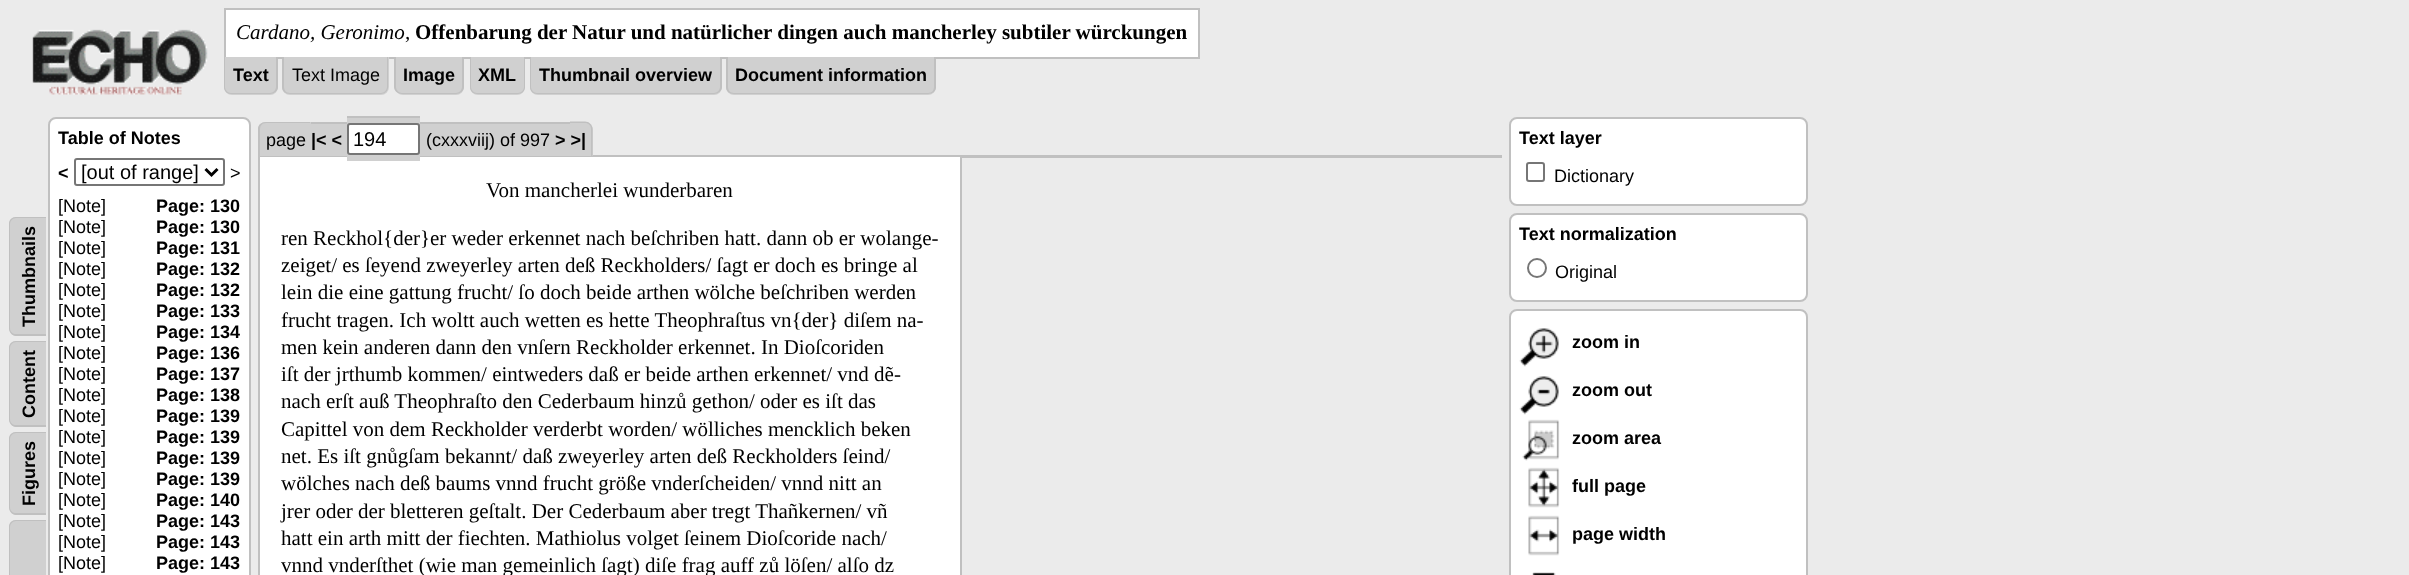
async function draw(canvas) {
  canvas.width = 2409;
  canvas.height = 575;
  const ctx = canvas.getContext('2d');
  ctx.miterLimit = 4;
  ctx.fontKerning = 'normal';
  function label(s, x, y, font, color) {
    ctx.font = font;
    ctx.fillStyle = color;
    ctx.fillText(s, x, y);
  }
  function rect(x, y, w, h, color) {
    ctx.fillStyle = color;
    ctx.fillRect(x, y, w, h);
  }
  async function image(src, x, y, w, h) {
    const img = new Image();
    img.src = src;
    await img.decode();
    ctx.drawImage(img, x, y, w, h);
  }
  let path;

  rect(0, 0, 2409, 575, '#ebebeb');
  await image('assets/img1.png', 32, 29, 176, 66);
  ctx.fillStyle = '#fff';
  ctx.beginPath();
  ctx.rect(225, 9, 974, 49);
  ctx.fill();
  ctx.strokeStyle = '#c0c0c0';
  ctx.lineWidth = 2;
  ctx.stroke();
  label('Cardano, Geronimo', 236, 39, 'italic 21px Liberation Serif', '#000');
  label(',', 405, 39, '21px Liberation Serif', '#000');
  label('Offenbarung der Natur und natürlicher dingen auch mancherley subtiler würckungen', 415, 39, 'bold 21px Liberation Serif', '#000');
  ctx.fillStyle = '#d0d0d0';
  ctx.beginPath();
  ctx.roundRect(224, 57, 54, 38, [0, 0, 8, 8]);
  ctx.fill();
  ctx.fillStyle = '#c0c0c0';
  path = new Path2D('M224 57H278V87C278 91 274 94 270 94H231C227 94 224 91 224 87ZM225 57H276V87C276 90 273 93 270 93H231C228 93 225 90 225 87Z');
  ctx.fill(path, 'evenodd');
  label('Text', 233, 81, 'bold 18px Liberation Sans', '#000');
  ctx.fillStyle = '#d0d0d0';
  ctx.beginPath();
  ctx.roundRect(282, 57, 107, 38, [0, 0, 8, 8]);
  ctx.fill();
  ctx.fillStyle = '#c0c0c0';
  path = new Path2D('M282 57H388V87C388 91 385 94 381 94H290C285 94 282 91 282 87ZM284 57H387V87C387 90 384 93 381 93H290C286 93 284 90 284 87Z');
  ctx.fill(path, 'evenodd');
  label('Text Image', 292, 81, '18px Liberation Sans', '#000');
  ctx.fillStyle = '#d0d0d0';
  ctx.beginPath();
  ctx.roundRect(395, 57, 69, 38, [0, 0, 8, 8]);
  ctx.fill();
  ctx.fillStyle = '#c0c0c0';
  path = new Path2D('M394 57H464V87C464 91 460 94 456 94H402C398 94 394 91 394 87ZM396 57H462V87C462 90 459 93 456 93H402C399 93 396 90 396 87Z');
  ctx.fill(path, 'evenodd');
  label('Image', 403, 81, 'bold 18px Liberation Sans', '#000');
  ctx.fillStyle = '#d0d0d0';
  ctx.beginPath();
  ctx.roundRect(470, 57, 55, 38, [0, 0, 8, 8]);
  ctx.fill();
  ctx.fillStyle = '#c0c0c0';
  path = new Path2D('M470 57H525V87C525 91 522 94 518 94H477C473 94 470 91 470 87ZM471 57H524V87C524 90 521 93 518 93H477C474 93 471 90 471 87Z');
  ctx.fill(path, 'evenodd');
  label('XML', 478, 81, 'bold 18px Liberation Sans', '#000');
  ctx.fillStyle = '#d0d0d0';
  ctx.beginPath();
  ctx.roundRect(530, 57, 192, 38, [0, 0, 8, 8]);
  ctx.fill();
  ctx.fillStyle = '#c0c0c0';
  path = new Path2D('M530 57H722V87C722 91 718 94 714 94H537C533 94 530 91 530 87ZM531 57H720V87C720 90 717 93 714 93H537C534 93 531 90 531 87Z');
  ctx.fill(path, 'evenodd');
  label('Thumbnail overview', 539, 81, 'bold 18px Liberation Sans', '#000');
  ctx.fillStyle = '#d0d0d0';
  ctx.beginPath();
  ctx.roundRect(726, 57, 210, 38, [0, 0, 8, 8]);
  ctx.fill();
  ctx.fillStyle = '#c0c0c0';
  path = new Path2D('M726 57H936V87C936 91 933 94 928 94H734C729 94 726 91 726 87ZM728 57H934V87C934 90 932 93 928 93H734C730 93 728 90 728 87Z');
  ctx.fill(path, 'evenodd');
  label('Document information', 735, 81, 'bold 18px Liberation Sans', '#000');
  ctx.fillStyle = '#d0d0d0';
  path = new Path2D('M9 328V224C9 220 12 217 16 217H46V336H16C12 336 9 332 9 328Z');
  ctx.fill(path);
  ctx.fillStyle = '#c0c0c0';
  path = new Path2D('M9 328V224C9 220 12 217 16 217H46V336H16C12 336 9 332 9 328ZM10 328V224C10 221 13 218 16 218H46V334H16C13 334 10 332 10 328Z');
  ctx.fill(path, 'evenodd');
  ctx.fillStyle = '#000';
  ctx.save();
  ctx.translate(35, 327);
  ctx.rotate(-90 * Math.PI / 180);
  ctx.fillText('Thumbnails', 0, 0);
  ctx.restore();
  ctx.fillStyle = '#d0d0d0';
  path = new Path2D('M9 419V348C9 344 12 341 16 341H46V427H16C12 427 9 423 9 419Z');
  ctx.fill(path);
  ctx.fillStyle = '#c0c0c0';
  path = new Path2D('M9 419V348C9 344 12 341 16 341H46V427H16C12 427 9 423 9 419ZM10 419V348C10 345 13 342 16 342H46V425H16C13 425 10 423 10 419Z');
  ctx.fill(path, 'evenodd');
  ctx.fillStyle = '#000';
  ctx.save();
  ctx.translate(35, 418);
  ctx.rotate(-90 * Math.PI / 180);
  ctx.fillText('Content', 0, 0);
  ctx.restore();
  ctx.fillStyle = '#d0d0d0';
  path = new Path2D('M9 507V439C9 435 12 432 16 432H46V515H16C12 515 9 511 9 507Z');
  ctx.fill(path);
  ctx.fillStyle = '#c0c0c0';
  path = new Path2D('M9 507V439C9 435 12 432 16 432H46V515H16C12 515 9 511 9 507ZM10 507V439C10 436 13 433 16 433H46V513H16C13 513 10 511 10 507Z');
  ctx.fill(path, 'evenodd');
  ctx.fillStyle = '#000';
  ctx.save();
  ctx.translate(35, 506);
  ctx.rotate(-90 * Math.PI / 180);
  ctx.fillText('Figures', 0, 0);
  ctx.restore();
  ctx.fillStyle = '#d0d0d0';
  path = new Path2D('M9 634V527C9 523 12 520 16 520H46V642H16C12 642 9 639 9 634Z');
  ctx.fill(path);
  ctx.fillStyle = '#c0c0c0';
  path = new Path2D('M9 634V527C9 523 12 520 16 520H46V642H16C12 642 9 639 9 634ZM10 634V527C10 524 13 521 16 521H46V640H16C13 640 10 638 10 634Z');
  ctx.fill(path, 'evenodd');
  ctx.fillStyle = '#fff';
  ctx.beginPath();
  ctx.roundRect(49, 118, 201, 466, 7);
  ctx.fill();
  ctx.stroke();
  label('Table of Notes', 58, 144, 'bold 18px Liberation Sans', '#000');
  label('<', 58, 179, 'bold 18px Liberation Sans', '#000');
  ctx.beginPath();
  ctx.roundRect(75, 159, 149, 26, 2);
  ctx.strokeStyle = '#767676';
  ctx.stroke();
  path = new Path2D('M205.5 169L211.5 175L217.5 169');
  ctx.strokeStyle = '#000';
  ctx.lineWidth = 3;
  ctx.stroke(path);
  label('[out of range]', 81, 179, '20px Liberation Sans', '#000');
  label('>', 230, 179, '18px Liberation Sans', '#000');
  label('[Note]', 58, 212, '18px Liberation Sans', '#000');
  label('Page: 130', 156, 212, 'bold 18px Liberation Sans', '#000');
  label('[Note]', 58, 233, '18px Liberation Sans', '#000');
  label('Page: 130', 156, 233, 'bold 18px Liberation Sans', '#000');
  label('[Note]', 58, 254, '18px Liberation Sans', '#000');
  label('Page: 131', 156, 254, 'bold 18px Liberation Sans', '#000');
  label('[Note]', 58, 275, '18px Liberation Sans', '#000');
  label('Page: 132', 156, 275, 'bold 18px Liberation Sans', '#000');
  label('[Note]', 58, 296, '18px Liberation Sans', '#000');
  label('Page: 132', 156, 296, 'bold 18px Liberation Sans', '#000');
  label('[Note]', 58, 317, '18px Liberation Sans', '#000');
  label('Page: 133', 156, 317, 'bold 18px Liberation Sans', '#000');
  label('[Note]', 58, 338, '18px Liberation Sans', '#000');
  label('Page: 134', 156, 338, 'bold 18px Liberation Sans', '#000');
  label('[Note]', 58, 359, '18px Liberation Sans', '#000');
  label('Page: 136', 156, 359, 'bold 18px Liberation Sans', '#000');
  label('[Note]', 58, 380, '18px Liberation Sans', '#000');
  label('Page: 137', 156, 380, 'bold 18px Liberation Sans', '#000');
  label('[Note]', 58, 401, '18px Liberation Sans', '#000');
  label('Page: 138', 156, 401, 'bold 18px Liberation Sans', '#000');
  label('[Note]', 58, 422, '18px Liberation Sans', '#000');
  label('Page: 139', 156, 422, 'bold 18px Liberation Sans', '#000');
  label('[Note]', 58, 443, '18px Liberation Sans', '#000');
  label('Page: 139', 156, 443, 'bold 18px Liberation Sans', '#000');
  label('[Note]', 58, 464, '18px Liberation Sans', '#000');
  label('Page: 139', 156, 464, 'bold 18px Liberation Sans', '#000');
  label('[Note]', 58, 485, '18px Liberation Sans', '#000');
  label('Page: 139', 156, 485, 'bold 18px Liberation Sans', '#000');
  label('[Note]', 58, 506, '18px Liberation Sans', '#000');
  label('Page: 140', 156, 506, 'bold 18px Liberation Sans', '#000');
  label('[Note]', 58, 527, '18px Liberation Sans', '#000');
  label('Page: 143', 156, 527, 'bold 18px Liberation Sans', '#000');
  label('[Note]', 58, 548, '18px Liberation Sans', '#000');
  label('Page: 143', 156, 548, 'bold 18px Liberation Sans', '#000');
  label('[Note]', 58, 569, '18px Liberation Sans', '#000');
  label('Page: 143', 156, 569, 'bold 18px Liberation Sans', '#000');
  ctx.fillStyle = '#fff';
  ctx.beginPath();
  ctx.rect(259, 156, 702, 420);
  ctx.fill();
  ctx.strokeStyle = '#c0c0c0';
  ctx.lineWidth = 2;
  ctx.stroke();
  ctx.fillStyle = '#d0d0d0';
  ctx.beginPath();
  ctx.roundRect(258, 122, 53, 34, [8, 0, 0, 0]);
  ctx.fill();
  ctx.fillStyle = '#c0c0c0';
  path = new Path2D('M266 122H310V156H258V129C258 125 261 122 266 122ZM266 123H310V156H260V129C260 126 262 123 266 123Z');
  ctx.fill(path, 'evenodd');
  rect(311, 124, 16, 32, '#d0d0d0');
  rect(311, 122, 16, 2, '#c0c0c0');
  rect(327, 122, 5, 34, '#d0d0d0');
  rect(327, 122, 15, 2, '#c0c0c0');
  rect(332, 124, 10, 32, '#d0d0d0');
  rect(342, 122, 5, 34, '#d0d0d0');
  rect(342, 122, 5, 2, '#c0c0c0');
  rect(347, 118, 73, 43, '#d0d0d0');
  rect(347, 116, 73, 2, '#c0c0c0');
  rect(420, 122, 6, 34, '#d0d0d0');
  rect(420, 122, 146, 2, '#c0c0c0');
  rect(426, 124, 140, 32, '#d0d0d0');
  rect(566, 122, 4, 34, '#d0d0d0');
  rect(566, 122, 5, 2, '#c0c0c0');
  ctx.fillStyle = '#d0d0d0';
  ctx.beginPath();
  ctx.roundRect(570, 122, 23, 34, [0, 8, 0, 0]);
  ctx.fill();
  ctx.fillStyle = '#c0c0c0';
  path = new Path2D('M570 121.5H585C589 121.5 592.5 125 592.5 129V156H570ZM570 123H585C588.5 123 591 125.5 591 129V156H570Z');
  ctx.fill(path, 'evenodd');
  label('page', 266, 146, '18px Liberation Sans', '#000');
  label('|< <', 311, 146, 'bold 18px Liberation Sans', '#000');
  ctx.fillStyle = '#fff';
  ctx.beginPath();
  ctx.roundRect(348, 124, 71, 30, 2);
  ctx.fill();
  ctx.strokeStyle = '#767676';
  ctx.stroke();
  label('194', 353, 146, '20px Liberation Sans', '#000');
  label('(cxxxviĳ) of 997', 426, 146, '18px Liberation Sans', '#000');
  label('> >|', 555, 146, 'bold 18px Liberation Sans', '#000');
  rect(962, 155, 540, 3, '#c0c0c0');
  label('Von mancherlei wunderbaren', 486, 197, '21px Liberation Serif', '#000');
  label('ren Reckhol{der}er weder erkennet nach beſchriben hatt. dann ob er wolange-', 281, 245, '21px Liberation Serif', '#000');
  label('zeiget/ es ſeyend zweyerley arten deß Reckholders/ ſagt er doch es bringe al', 281, 272, '21px Liberation Serif', '#000');
  label('lein die eine gattung frucht/ ſo doch beide arthen wölche beſchriben werden', 281, 299, '21px Liberation Serif', '#000');
  label('frucht tragen. Ich woltt auch wetten es hette Theophraſtus vn{der} diſem na-', 281, 327, '21px Liberation Serif', '#000');
  label('men kein anderen dann den vnſern Reckholder erkennet. In Dioſcoriden', 281, 354, '21px Liberation Serif', '#000');
  label('iſt der jrthumb kommen/ eintweders daß er beide arthen erkennet/ vnd dẽ-', 281, 381, '21px Liberation Serif', '#000');
  label('nach erſt auß Theophraſto den Cederbaum hinzů gethon/ oder es iſt das', 281, 408, '21px Liberation Serif', '#000');
  label('Capittel von dem Reckholder verderbt worden/ wölliches mencklich beken', 281, 436, '21px Liberation Serif', '#000');
  label('net. Es iſt gnůgſam bekannt/ daß zweyerley arten deß Reckholders ſeind/', 281, 463, '21px Liberation Serif', '#000');
  label('wölches nach deß baums vnnd frucht größe vnderſcheiden/ vnnd nitt an', 281, 490, '21px Liberation Serif', '#000');
  label('jrer oder der bletteren geſtalt. Der Cederbaum aber tregt Thañkernen/ vñ', 281, 518, '21px Liberation Serif', '#000');
  label('hatt ein arth mitt der fiechten. Mathiolus volget ſeinem Dioſcoride nach/', 281, 545, '21px Liberation Serif', '#000');
  label('vnnd vnderſthet (wie man gemeinlich ſagt) diſe frag auff zů löſen/ alſo dz', 281, 572, '21px Liberation Serif', '#000');
  ctx.fillStyle = '#fff';
  ctx.beginPath();
  ctx.roundRect(1510, 118, 297, 87, 7);
  ctx.fill();
  ctx.strokeStyle = '#c0c0c0';
  ctx.stroke();
  label('Text layer', 1519, 144, 'bold 18px Liberation Sans', '#000');
  ctx.beginPath();
  ctx.roundRect(1527, 163, 17, 18, 2);
  ctx.strokeStyle = '#767676';
  ctx.stroke();
  label('Dictionary', 1554, 182, '18px Liberation Sans', '#000');
  ctx.fillStyle = '#fff';
  ctx.beginPath();
  ctx.roundRect(1510, 214, 297, 87, 7);
  ctx.fill();
  ctx.strokeStyle = '#c0c0c0';
  ctx.stroke();
  label('Text normalization', 1519, 240, 'bold 18px Liberation Sans', '#000');
  ctx.beginPath();
  ctx.arc(1537, 268, 9, 0, 2 * Math.PI);
  ctx.strokeStyle = '#767676';
  ctx.stroke();
  label('Original', 1555, 278, '18px Liberation Sans', '#000');
  ctx.fillStyle = '#fff';
  ctx.beginPath();
  ctx.roundRect(1510, 310, 297, 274, 7);
  ctx.fill();
  ctx.strokeStyle = '#c0c0c0';
  ctx.stroke();
  await image('assets/img2.png', 1519, 328, 40, 39);
  label('zoom in', 1572, 348, 'bold 18px Liberation Sans', '#000');
  await image('assets/img3.png', 1519, 376, 40, 39);
  label('zoom out', 1572, 396, 'bold 18px Liberation Sans', '#000');
  await image('assets/img4.png', 1522, 419, 38, 42);
  label('zoom area', 1572, 444, 'bold 18px Liberation Sans', '#000');
  await image('assets/img5.png', 1528, 467, 32, 41);
  label('full page', 1572, 492, 'bold 18px Liberation Sans', '#000');
  await image('assets/img6.png', 1528, 515, 32, 41);
  label('page width', 1572, 540, 'bold 18px Liberation Sans', '#000');
  await image('assets/img7.png', 1532, 572, 24, 3);
}

draw(document.querySelector('canvas'));
